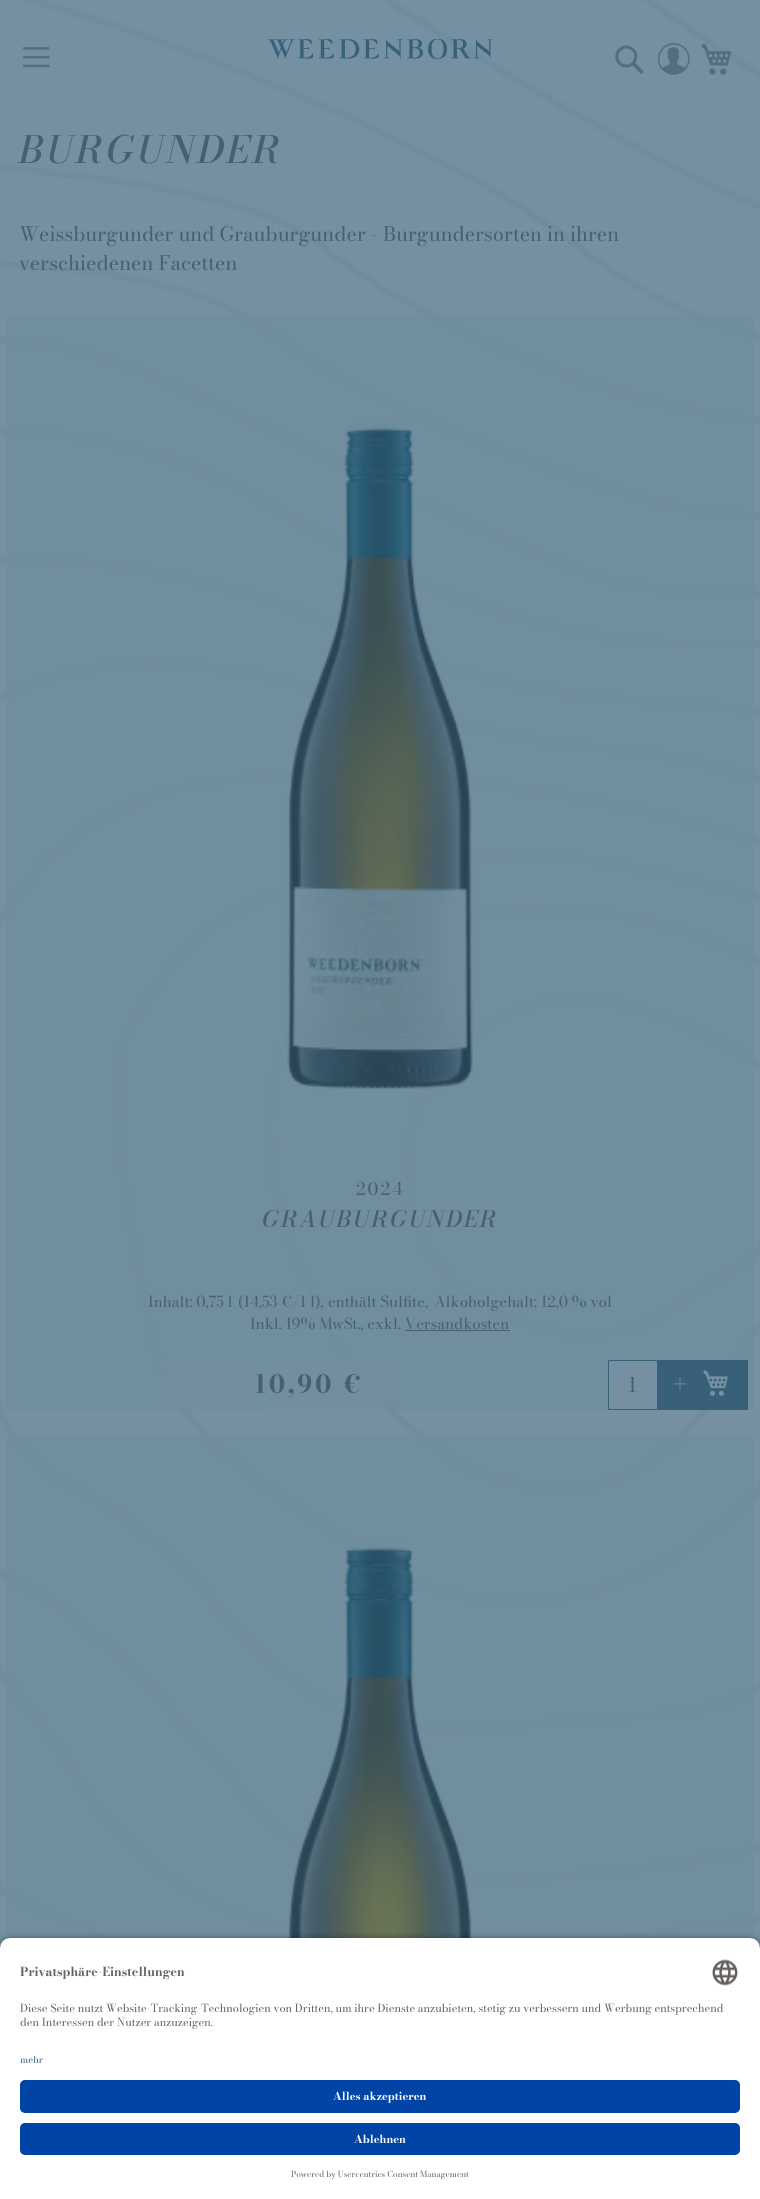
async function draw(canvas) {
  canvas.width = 760;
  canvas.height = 2199;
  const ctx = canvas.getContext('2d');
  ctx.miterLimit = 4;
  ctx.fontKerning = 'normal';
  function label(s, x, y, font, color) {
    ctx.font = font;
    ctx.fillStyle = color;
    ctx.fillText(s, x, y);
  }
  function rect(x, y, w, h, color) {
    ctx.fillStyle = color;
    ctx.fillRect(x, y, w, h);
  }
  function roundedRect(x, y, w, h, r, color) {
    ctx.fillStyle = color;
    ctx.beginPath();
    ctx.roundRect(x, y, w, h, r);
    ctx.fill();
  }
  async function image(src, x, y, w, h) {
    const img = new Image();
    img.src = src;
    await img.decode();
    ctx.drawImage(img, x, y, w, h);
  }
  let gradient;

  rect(0, 0, 760, 2199, '#7490a1');
  await image('assets/img1.png', 0, 0, 760, 1938);
  await image('assets/img2.png', 23, 47, 27, 21);
  await image('assets/img3.png', 268, 39, 224, 20);
  await image('assets/img4.png', 615, 45, 29, 29);
  await image('assets/img5.png', 657, 43, 33, 32);
  await image('assets/img6.png', 701, 44, 30, 31);
  ctx.letterSpacing = '3.1px';
  label('BURGUNDER', 19, 163, 'italic 500 37.5px Bodoni Moda', '#456171');
  ctx.letterSpacing = '0px';
  label('Weissburgunder und Grauburgunder - Burgundersorten in ihren', 19, 241, '20px Bodoni Moda', '#456171');
  label('verschiedenen Facetten', 19, 270, '20px Bodoni Moda', '#456171');
  rect(6, 315, 748, 1095, '#708d9cb3');
  await image('assets/img7.png', 287, 423, 186, 666);
  ctx.letterSpacing = '2px';
  label('2024', 356, 1195, '17.5px Bodoni Moda', '#456171');
  ctx.letterSpacing = '2.25px';
  label('GRAUBURGUNDER', 262, 1227, 'italic 500 22.5px Bodoni Moda', '#456171');
  gradient = ctx.createLinearGradient(13, 1385, 748, 1385);
  gradient.addColorStop(0, '#718d9e');
  gradient.addColorStop(1, '#7490a133');
  ctx.fillStyle = gradient;
  ctx.fillRect(163, 1360, 225, 50);
  ctx.letterSpacing = '0px';
  label('Inhalt: 0,75 l', 148, 1307, '15px Bodoni Moda', '#456171');
  label('(14,53 €/1 l),', 238, 1307, '15px Bodoni Moda', '#456171');
  label('enthält Sulfite,', 328, 1307, '15px Bodoni Moda', '#456171');
  label('Alkoholgehalt: 12,0 % vol', 434, 1307, '15px Bodoni Moda', '#456171');
  label('Inkl. 19% MwSt., exkl. Versandkosten', 250, 1329, '15px Bodoni Moda', '#456171');
  rect(405, 1330, 105, 1, '#456171');
  ctx.letterSpacing = '2.5px';
  label('10,90 €', 254, 1393, 'bold 25px Bodoni Moda', '#456171');
  ctx.fillStyle = '#7490a1';
  ctx.beginPath();
  ctx.rect(608.5, 1360.5, 49, 49);
  ctx.fill();
  ctx.strokeStyle = '#386179';
  ctx.stroke();
  ctx.letterSpacing = '0px';
  label('1', 628, 1392, '20px Bodoni Moda', '#456171');
  rect(658, 1360, 90, 50, '#386179');
  await image('assets/img8.png', 674, 1377, 12, 13);
  await image('assets/img9.png', 703, 1370, 25, 26);
  rect(6, 1435, 748, 504, '#708d9cb3');
  await image('assets/img10.png', 288, 1543, 184, 395);
  ctx.fillStyle = '#000000cc';
  ctx.filter = 'blur(4.5px)';
  ctx.beginPath();
  ctx.roundRect(0, 1941, 760, 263, 10);
  ctx.fill();
  ctx.filter = 'none';
  ctx.fillStyle = '#fff';
  ctx.beginPath();
  ctx.roundRect(0, 1938, 760, 117, [10, 10, 0, 0]);
  ctx.fill();
  label('Privatsphäre-Einstellungen', 20, 1976, 'bold 12.25px Bodoni Moda', '#63605d');
  await image('assets/img11.png', 712, 1959, 26, 27);
  label('Diese Seite nutzt Website-Tracking-Technologien von Dritten, um ihre Dienste anzubieten, stetig zu verbessern und Werbung entsprechend', 20, 2012, '10.95px Bodoni Moda', '#63605d');
  label('den Interessen der Nutzer anzuzeigen.', 20, 2026, '10.95px Bodoni Moda', '#63605d');
  rect(0, 2055, 760, 144, '#fff');
  label('mehr', 20, 2063, '9.5px Bodoni Moda', '#386179');
  roundedRect(20, 2080, 720, 33, 5, '#0045a5');
  label('Alles akzeptieren', 333, 2100, 'bold 10.95px Bodoni Moda', '#fafafa');
  roundedRect(20, 2123, 720, 32, 5, '#0045a5');
  label('Ablehnen', 354, 2143, 'bold 10.95px Bodoni Moda', '#fafafa');
  label('Powered by Usercentrics Consent Management', 291, 2177, '8.2px Bodoni Moda', '#63605d');
}

draw(document.querySelector('canvas'));
